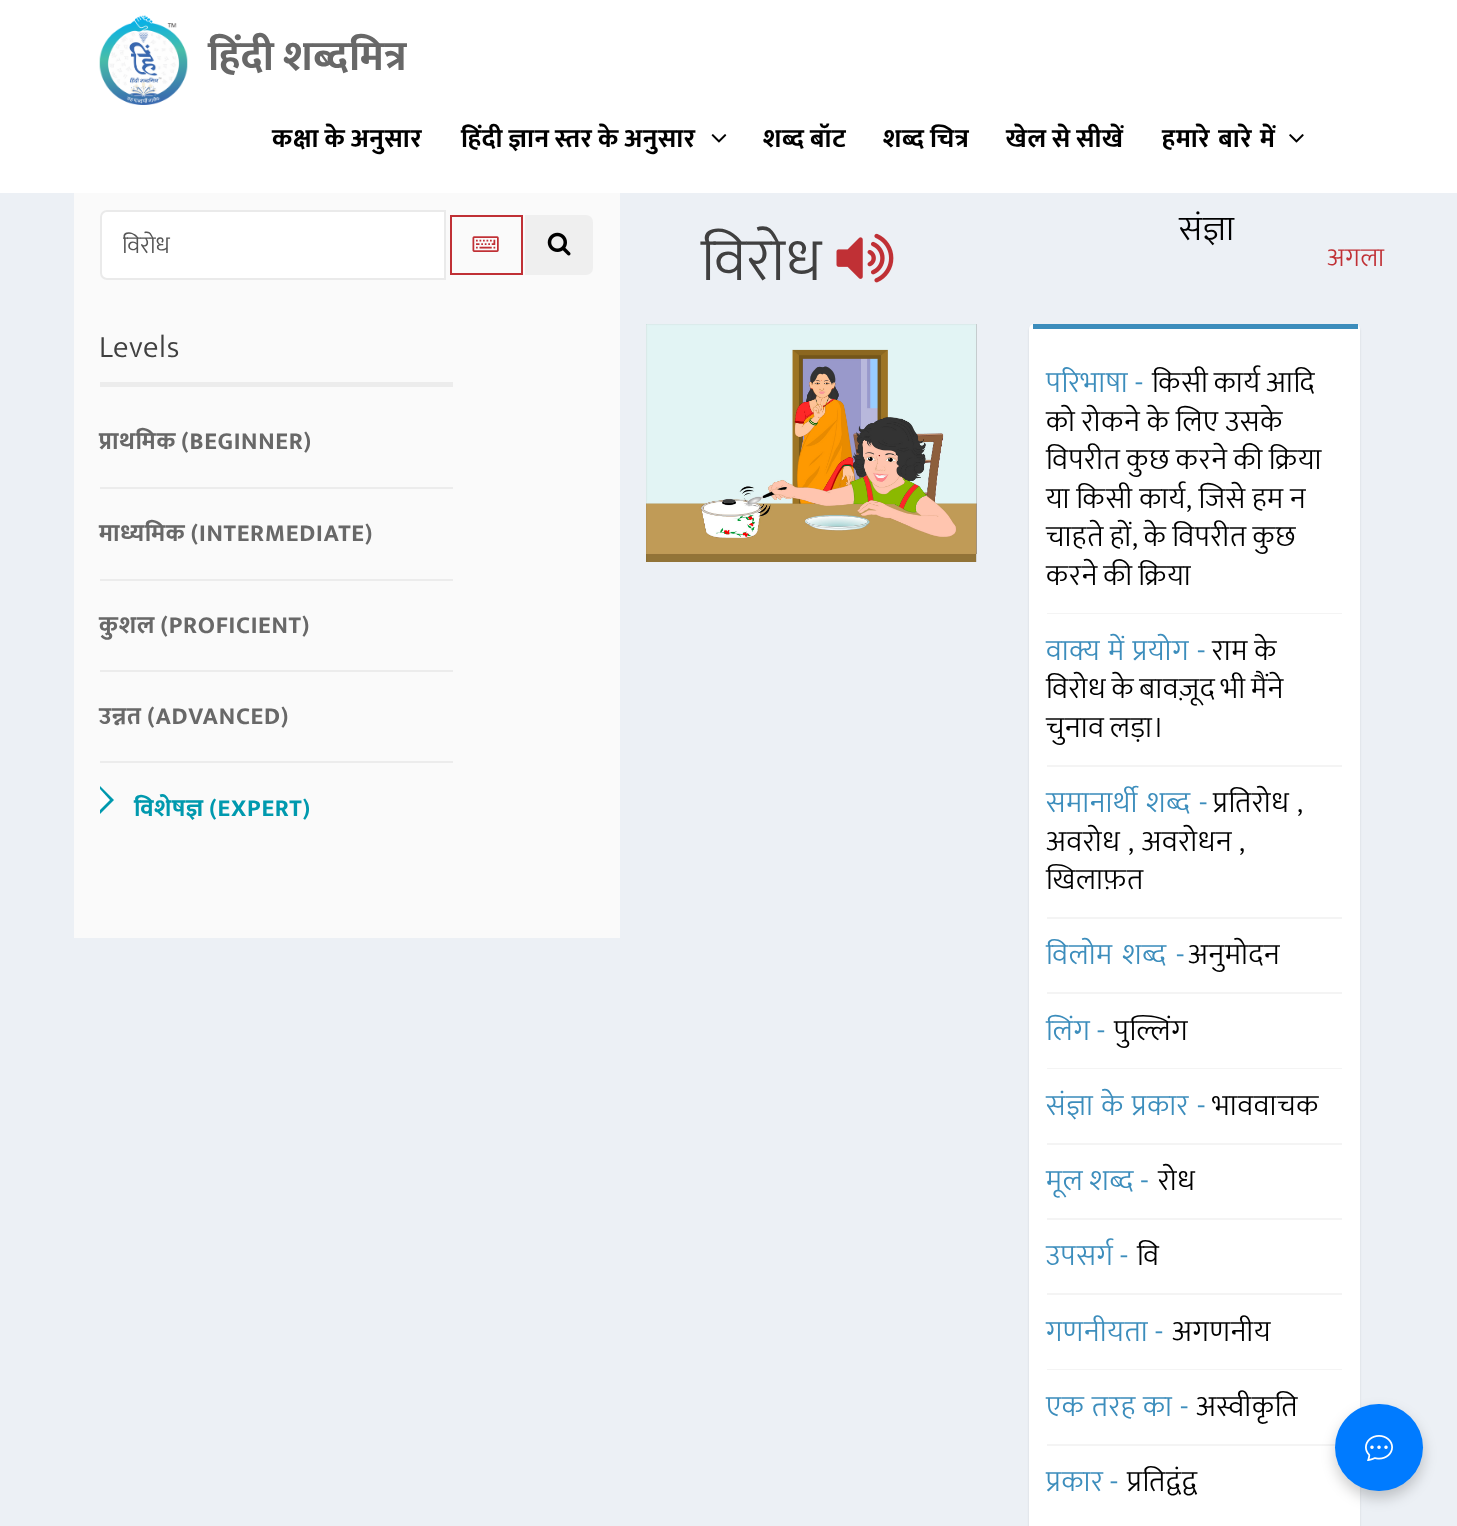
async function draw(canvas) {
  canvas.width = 1457;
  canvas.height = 1526;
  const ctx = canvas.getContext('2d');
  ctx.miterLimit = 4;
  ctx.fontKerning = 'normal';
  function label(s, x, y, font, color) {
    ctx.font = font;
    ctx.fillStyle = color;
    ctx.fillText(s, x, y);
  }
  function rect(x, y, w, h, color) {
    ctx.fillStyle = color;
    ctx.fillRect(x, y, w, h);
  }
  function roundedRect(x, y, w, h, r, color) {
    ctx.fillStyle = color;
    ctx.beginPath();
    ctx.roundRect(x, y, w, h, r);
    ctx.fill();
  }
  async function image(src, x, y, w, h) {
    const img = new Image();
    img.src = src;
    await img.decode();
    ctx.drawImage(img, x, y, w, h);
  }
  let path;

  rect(0, 0, 1457, 1526, '#fff');
  await image('assets/img1.png', 99, 15, 89, 90);
  ctx.letterSpacing = '0.7px';
  ctx.wordSpacing = '-2px';
  label('हिंदी शब्दमित्र', 208, 70, 'bold 42px Ek Mukta', '#686868');
  ctx.wordSpacing = '-1.5px';
  label('कक्षा के अनुसार', 272, 147, 'bold 26.25px Ek Mukta', '#000');
  label('हिंदी ज्ञान स्तर के अनुसार', 461, 147, 'bold 26.25px Ek Mukta', '#000');
  await image('assets/img2.png', 711, 134, 16, 9);
  label('शब्द बॉट', 763, 147, 'bold 26.25px Ek Mukta', '#000');
  label('शब्द चित्र', 883, 147, 'bold 26.25px Ek Mukta', '#000');
  label('खेल से सीखें', 1006, 147, 'bold 26.25px Ek Mukta', '#000');
  ctx.wordSpacing = '1px';
  label('हमारे बारे में', 1162, 147, 'bold 26.25px Ek Mukta', '#000');
  await image('assets/img3.png', 1289, 134, 15, 9);
  rect(0, 193, 1457, 1333, '#ecf0f5');
  rect(74, 193, 546, 745, '#fafafa');
  ctx.fillStyle = '#fff';
  ctx.beginPath();
  ctx.roundRect(101, 211, 344, 68, [6, 0, 0, 6]);
  ctx.fill();
  ctx.strokeStyle = '#eaeaea';
  ctx.lineWidth = 2;
  ctx.stroke();
  ctx.save();
  ctx.beginPath();
  ctx.rect(123, 226, 301, 40);
  ctx.clip();
  ctx.letterSpacing = '0px';
  ctx.wordSpacing = '0px';
  label('विरोध', 122, 253, '300 24.5px Ek Mukta', '#555');
  ctx.restore();
  ctx.strokeStyle = '#c03035';
  ctx.strokeRect(451, 216, 71, 58);
  await image('assets/img4.png', 472, 236, 27, 16);
  ctx.fillStyle = '#efefef';
  ctx.beginPath();
  ctx.roundRect(525, 215, 68, 60, [0, 7, 7, 0]);
  ctx.fill();
  await image('assets/img5.png', 547, 232, 24, 24);
  rect(100, 382, 353, 5, '#ececec');
  ctx.wordSpacing = '0px';
  label('Levels', 99, 357, '300 31.5px Ek Mukta', '#404040');
  rect(100, 487, 353, 2, '#ececec');
  ctx.wordSpacing = '-1px';
  label('प्राथमिक (BEGINNER)', 99, 449, 'bold 24.5px Ek Mukta', '#686868');
  rect(100, 579, 353, 2, '#ececec');
  label('माध्यमिक (INTERMEDIATE)', 99, 541, 'bold 24.5px Ek Mukta', '#686868');
  rect(100, 670, 353, 2, '#ececec');
  label('कुशल (PROFICIENT)', 99, 633, 'bold 24.5px Ek Mukta', '#686868');
  rect(100, 761, 353, 2, '#ececec');
  label('उन्नत (ADVANCED)', 99, 724, 'bold 24.5px Ek Mukta', '#686868');
  ctx.fillStyle = '#0099ae';
  path = new Path2D('M100 814V786L114 800Z');
  ctx.fill(path);
  ctx.fillStyle = '#fff';
  path = new Path2D('M100 810V789L110 800Z');
  ctx.fill(path);
  label('विशेषज्ञ (EXPERT)', 134, 816, 'bold 24.5px Ek Mukta', '#0099ae');
  ctx.wordSpacing = '0px';
  label('विरोध', 701, 280, '300 61px Ek Mukta', '#404040');
  await image('assets/img6.png', 836, 233, 58, 50);
  label('संज्ञा', 1179, 240, '300 35px Ek Mukta', '#000');
  label('अगला', 1327, 266, '300 26.25px Ek Mukta', '#c03035');
  await image('assets/img7.png', 646, 324, 331, 238);
  ctx.fillStyle = '#0000001a';
  ctx.filter = 'blur(1px)';
  ctx.beginPath();
  ctx.roundRect(1029, 326, 331, 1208, 5);
  ctx.fill();
  ctx.filter = 'none';
  roundedRect(1029, 324, 331, 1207, 5, '#fff');
  rect(1033, 324, 325, 5, '#3c8dbc');
  rect(1047, 613, 295, 1, '#f4f4f4');
  ctx.wordSpacing = '-1px';
  label('परिभाषा -', 1046, 392, '300 29.75px Ek Mukta', '#3c8dbc');
  ctx.wordSpacing = '-2px';
  label('किसी कार्य आदि', 1152, 392, '300 29.75px Ek Mukta', '#000');
  ctx.wordSpacing = '-1px';
  label('को रोकने के लिए उसके', 1046, 431, '300 29.75px Ek Mukta', '#000');
  ctx.wordSpacing = '-1.5px';
  label('विपरीत कुछ करने की क्रिया', 1046, 469, '300 29.75px Ek Mukta', '#000');
  ctx.wordSpacing = '-1px';
  label('या किसी कार्य, जिसे हम न', 1046, 508, '300 29.75px Ek Mukta', '#000');
  ctx.wordSpacing = '-1.5px';
  label('चाहते हों, के विपरीत कुछ', 1046, 546, '300 29.75px Ek Mukta', '#000');
  ctx.wordSpacing = '-2px';
  label('करने की क्रिया', 1046, 585, '300 29.75px Ek Mukta', '#000');
  rect(1047, 765, 295, 2, '#f4f4f4');
  ctx.wordSpacing = '0.5px';
  label('वाक्य में प्रयोग -', 1046, 660, '300 29.75px Ek Mukta', '#3c8dbc');
  ctx.wordSpacing = '-1px';
  label('राम के', 1212, 660, '300 29.75px Ek Mukta', '#000');
  ctx.wordSpacing = '-2px';
  label('विरोध के बावज़ूद भी मैंने', 1046, 698, '300 29.75px Ek Mukta', '#000');
  label('चुनाव लड़ा।', 1046, 737, '300 29.75px Ek Mukta', '#000');
  rect(1047, 917, 295, 2, '#f4f4f4');
  ctx.wordSpacing = '1px';
  label('समानार्थी शब्द -', 1046, 812, '300 29.75px Ek Mukta', '#3c8dbc');
  ctx.wordSpacing = '0px';
  label('प्रतिरोध', 1213, 812, '300 29.75px Ek Mukta', '#000');
  label(',', 1297, 812, '300 29.75px Ek Mukta', '#000');
  label('अवरोध', 1046, 851, '300 29.75px Ek Mukta', '#000');
  label(', अवरोधन', 1128, 851, '300 29.75px Ek Mukta', '#000');
  label(',', 1239, 851, '300 29.75px Ek Mukta', '#000');
  label('खिलाफ़त', 1046, 889, '300 29.75px Ek Mukta', '#000');
  rect(1047, 992, 295, 2, '#f4f4f4');
  ctx.wordSpacing = '2px';
  label('विलोम शब्द -', 1046, 964, '300 29.75px Ek Mukta', '#3c8dbc');
  ctx.wordSpacing = '0px';
  label('अनुमोदन', 1188, 964, '300 29.75px Ek Mukta', '#000');
  rect(1047, 1068, 295, 1, '#f4f4f4');
  ctx.wordSpacing = '-1px';
  label('लिंग -', 1046, 1040, '300 29.75px Ek Mukta', '#3c8dbc');
  ctx.wordSpacing = '0px';
  label('पुल्लिंग', 1114, 1040, '300 29.75px Ek Mukta', '#000');
  rect(1047, 1143, 295, 2, '#f4f4f4');
  ctx.wordSpacing = '0.5px';
  label('संज्ञा के प्रकार -', 1046, 1115, '300 29.75px Ek Mukta', '#3c8dbc');
  ctx.wordSpacing = '0px';
  label('भाववाचक', 1212, 1115, '300 29.75px Ek Mukta', '#000');
  rect(1047, 1218, 295, 2, '#f4f4f4');
  ctx.wordSpacing = '-1px';
  label('मूल शब्द -', 1046, 1190, '300 29.75px Ek Mukta', '#3c8dbc');
  ctx.wordSpacing = '0px';
  label('रोध', 1158, 1190, '300 29.75px Ek Mukta', '#000');
  rect(1047, 1293, 295, 2, '#f4f4f4');
  ctx.wordSpacing = '-1px';
  label('उपसर्ग -', 1046, 1265, '300 29.75px Ek Mukta', '#3c8dbc');
  ctx.wordSpacing = '0px';
  label('वि', 1137, 1265, '300 29.75px Ek Mukta', '#000');
  rect(1047, 1369, 295, 1, '#f4f4f4');
  ctx.wordSpacing = '-1px';
  label('गणनीयता -', 1046, 1341, '300 29.75px Ek Mukta', '#3c8dbc');
  ctx.wordSpacing = '0px';
  label('अगणनीय', 1172, 1341, '300 29.75px Ek Mukta', '#000');
  rect(1047, 1444, 295, 2, '#f4f4f4');
  label('एक तरह का -', 1046, 1416, '300 29.75px Ek Mukta', '#3c8dbc');
  label('अस्वीकृति', 1196, 1416, '300 29.75px Ek Mukta', '#000');
  ctx.wordSpacing = '-1px';
  label('प्रकार -', 1046, 1491, '300 29.75px Ek Mukta', '#3c8dbc');
  ctx.wordSpacing = '0px';
  label('प्रतिद्वंद्व', 1127, 1491, '300 29.75px Ek Mukta', '#000');
  ctx.fillStyle = '#00000033';
  ctx.filter = 'blur(7px)';
  ctx.beginPath();
  ctx.roundRect(1335, 1411, 88, 87, 43.5);
  ctx.fill();
  ctx.filter = 'none';
  roundedRect(1335, 1404, 88, 87, 43.5, '#007bff');
  await image('assets/img8.png', 1365, 1435, 28, 26);
}

draw(document.querySelector('canvas'));
